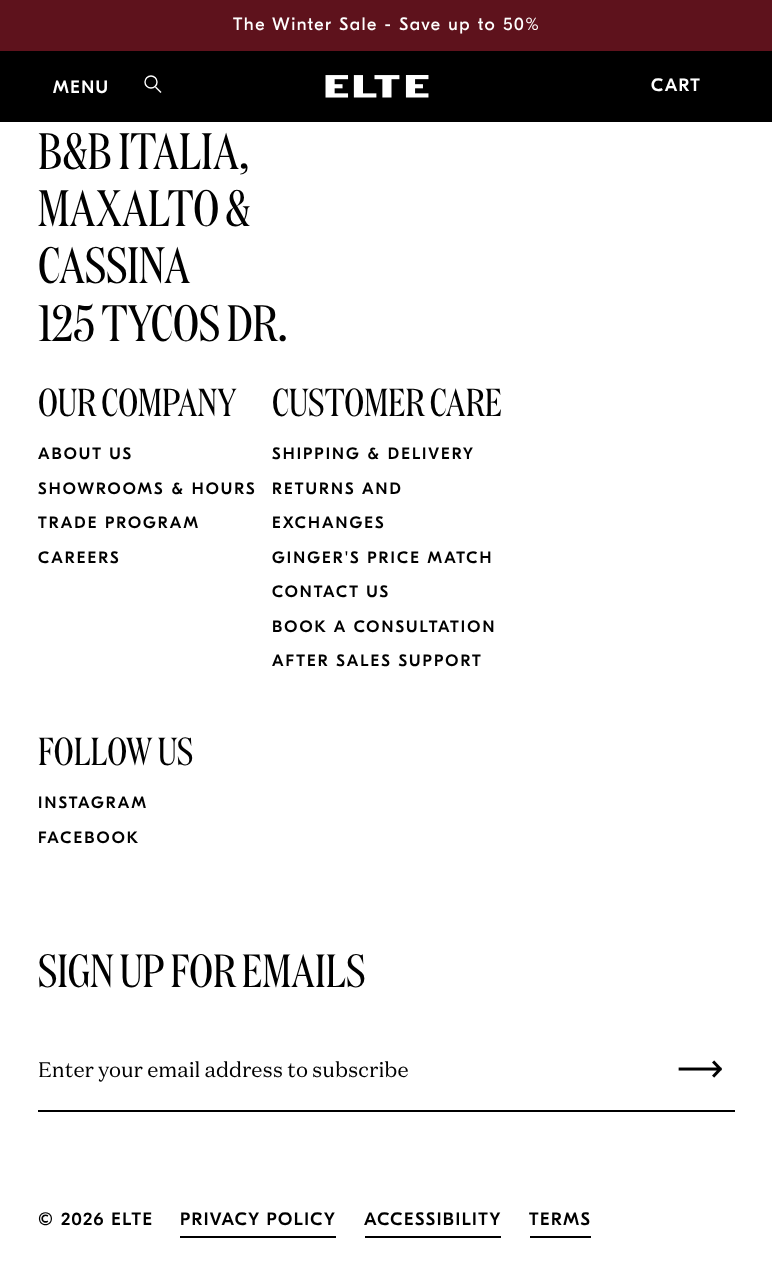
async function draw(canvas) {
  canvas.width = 772;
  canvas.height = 1274;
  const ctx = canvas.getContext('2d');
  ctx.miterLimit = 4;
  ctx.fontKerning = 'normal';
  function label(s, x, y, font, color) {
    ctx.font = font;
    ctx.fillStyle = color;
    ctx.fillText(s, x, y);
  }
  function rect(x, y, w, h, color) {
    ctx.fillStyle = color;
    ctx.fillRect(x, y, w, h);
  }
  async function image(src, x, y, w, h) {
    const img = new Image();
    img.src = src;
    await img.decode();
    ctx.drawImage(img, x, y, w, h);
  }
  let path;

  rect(0, 0, 772, 1274, '#fff');
  rect(0, 0, 772, 51, '#5e121c');
  ctx.letterSpacing = '1.5px';
  label('The Winter Sale - Save up to 50%', 233, 30, '18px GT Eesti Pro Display', '#fff');
  rect(0, 51, 772, 71, '#000');
  label('MENU', 53, 93, '500 18px GT Eesti Pro Display', '#fff');
  ctx.beginPath();
  ctx.arc(151, 82, 6, 0, 2 * Math.PI);
  ctx.strokeStyle = '#fff';
  ctx.lineWidth = 1.4;
  ctx.stroke();
  path = new Path2D('M156 87.5L160.5 92');
  ctx.lineCap = 'square';
  ctx.stroke(path);
  await image('assets/img1.png', 325, 75, 104, 23);
  label('CART', 651, 91, '500 18px GT Eesti Pro Display', '#fff');
  ctx.letterSpacing = '0px';
  label('B&B ITALIA,', 38, 169, '51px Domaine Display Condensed', '#000');
  label('MAXALTO &', 38, 226, '51px Domaine Display Condensed', '#000');
  label('CASSINA', 38, 283, '51px Domaine Display Condensed', '#000');
  label('125 TYCOS DR.', 38, 341, '51px Domaine Display Condensed', '#000');
  label('OUR COMPANY', 38, 416, '39px Domaine Display Condensed', '#000');
  ctx.letterSpacing = '2.1px';
  label('ABOUT US', 38, 459, '500 16.5px GT Eesti Pro Display', '#000');
  label('SHOWROOMS & HOURS', 38, 494, '500 16.5px GT Eesti Pro Display', '#000');
  label('TRADE PROGRAM', 38, 528, '500 16.5px GT Eesti Pro Display', '#000');
  label('CAREERS', 38, 563, '500 16.5px GT Eesti Pro Display', '#000');
  ctx.letterSpacing = '0px';
  label('CUSTOMER CARE', 272, 416, '39px Domaine Display Condensed', '#000');
  ctx.letterSpacing = '2.1px';
  label('SHIPPING & DELIVERY', 272, 459, '500 16.5px GT Eesti Pro Display', '#000');
  label('RETURNS AND', 272, 494, '500 16.5px GT Eesti Pro Display', '#000');
  label('EXCHANGES', 272, 528, '500 16.5px GT Eesti Pro Display', '#000');
  label('GINGER\'S PRICE MATCH', 272, 563, '500 16.5px GT Eesti Pro Display', '#000');
  label('CONTACT US', 272, 597, '500 16.5px GT Eesti Pro Display', '#000');
  label('BOOK A CONSULTATION', 272, 632, '500 16.5px GT Eesti Pro Display', '#000');
  label('AFTER SALES SUPPORT', 272, 666, '500 16.5px GT Eesti Pro Display', '#000');
  ctx.letterSpacing = '0px';
  label('FOLLOW US', 38, 765, '39px Domaine Display Condensed', '#000');
  ctx.letterSpacing = '2.1px';
  label('INSTAGRAM', 38, 808, '500 16.5px GT Eesti Pro Display', '#000');
  label('FACEBOOK', 38, 843, '500 16.5px GT Eesti Pro Display', '#000');
  ctx.letterSpacing = '0px';
  label('SIGN UP FOR EMAILS', 38, 987, '46.5px Domaine Display Condensed', '#000');
  rect(38, 1110, 697, 2, '#000');
  label('Enter your email address to subscribe', 38, 1077, '21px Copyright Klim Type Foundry', '#000');
  await image('assets/img2.png', 678, 1060, 44, 18);
  ctx.letterSpacing = '1.5px';
  label('© 2026 ELTE', 38, 1225, '500 18px GT Eesti Pro Display', '#000');
  rect(180, 1236, 156, 2, '#000');
  label('PRIVACY POLICY', 180, 1225, '500 18px GT Eesti Pro Display', '#000');
  rect(365, 1236, 136, 2, '#000');
  label('ACCESSIBILITY', 364, 1225, '500 18px GT Eesti Pro Display', '#000');
  rect(530, 1236, 61, 2, '#000');
  label('TERMS', 529, 1225, '500 18px GT Eesti Pro Display', '#000');
}

draw(document.querySelector('canvas'));
